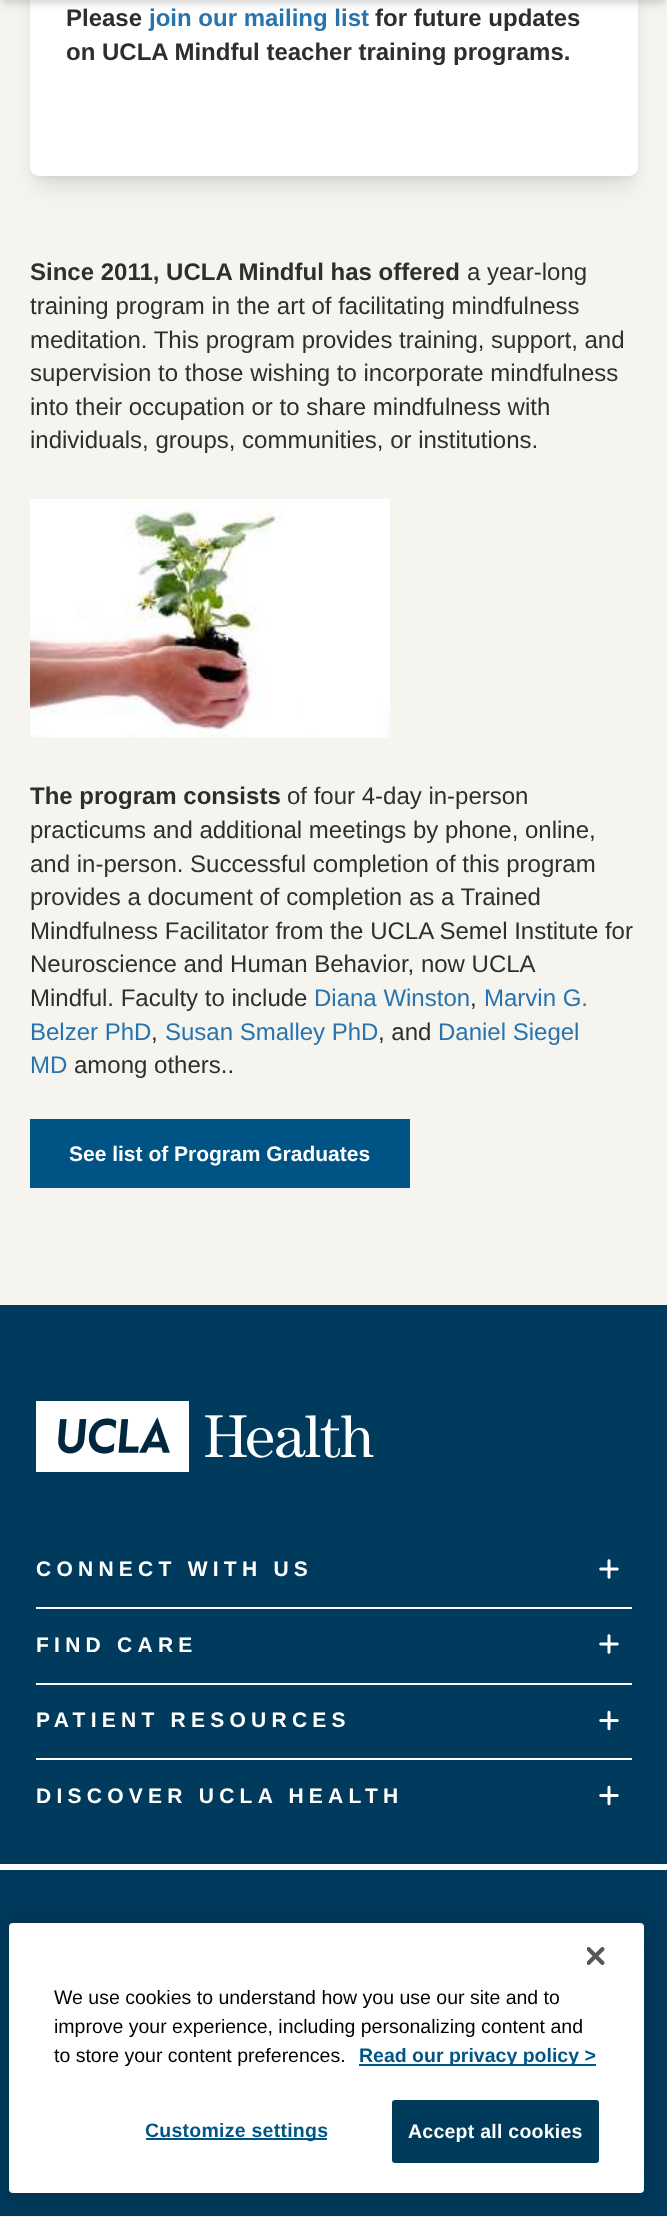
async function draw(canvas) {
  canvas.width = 667;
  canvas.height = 2217;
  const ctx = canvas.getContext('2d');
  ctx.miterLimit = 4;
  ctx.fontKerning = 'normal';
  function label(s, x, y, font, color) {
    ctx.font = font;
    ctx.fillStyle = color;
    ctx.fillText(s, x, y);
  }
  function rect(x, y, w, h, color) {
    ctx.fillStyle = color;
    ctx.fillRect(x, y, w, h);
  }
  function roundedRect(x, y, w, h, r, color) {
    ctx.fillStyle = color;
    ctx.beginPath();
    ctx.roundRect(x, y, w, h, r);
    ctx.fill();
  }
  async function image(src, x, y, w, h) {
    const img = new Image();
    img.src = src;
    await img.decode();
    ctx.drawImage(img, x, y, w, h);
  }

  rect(0, 0, 667, 2217, '#f6f4ee');
  ctx.fillStyle = '#0000001a';
  ctx.filter = 'blur(4.5px)';
  ctx.beginPath();
  ctx.roundRect(36, -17, 596, 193, 3);
  ctx.fill();
  ctx.filter = 'none';
  ctx.filter = 'blur(11px)';
  ctx.beginPath();
  ctx.roundRect(35, -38, 598, 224, 5);
  ctx.fill();
  ctx.filter = 'none';
  roundedRect(30, -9, 608, 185, 9, '#fff');
  ctx.fillStyle = '#0000001a';
  ctx.filter = 'blur(3px)';
  ctx.beginPath();
  ctx.rect(3, -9, 662, 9);
  ctx.fill();
  ctx.filter = 'none';
  ctx.filter = 'blur(4.5px)';
  ctx.beginPath();
  ctx.rect(2, -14, 664, 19);
  ctx.fill();
  ctx.filter = 'none';
  label('Please', 66, 26, 'bold 24px Liberation Sans', '#2e2e2e');
  label('join our mailing list', 149, 26, 'bold 24px Liberation Sans', '#2874af');
  label('for future updates', 375, 26, 'bold 24px Liberation Sans', '#2e2e2e');
  label('on UCLA Mindful teacher training programs.', 66, 60, 'bold 24px Liberation Sans', '#2e2e2e');
  label('Since 2011, UCLA Mindful has offered', 30, 280, 'bold 24px Liberation Sans', '#2e2e2e');
  label('a year-long', 467, 280, '24px Liberation Sans', '#2e2e2e');
  label('training program in the art of facilitating mindfulness', 30, 314, '24px Liberation Sans', '#2e2e2e');
  label('meditation. This program provides training, support, and', 30, 348, '24px Liberation Sans', '#2e2e2e');
  label('supervision to those wishing to incorporate mindfulness', 30, 381, '24px Liberation Sans', '#2e2e2e');
  label('into their occupation or to share mindfulness with', 30, 415, '24px Liberation Sans', '#2e2e2e');
  label('individuals, groups, communities, or institutions.', 30, 448, '24px Liberation Sans', '#2e2e2e');
  await image('assets/img1.png', 30, 499, 360, 239);
  label('The program consists', 30, 804, 'bold 24px Liberation Sans', '#2e2e2e');
  label('of four 4-day in-person', 287, 804, '24px Liberation Sans', '#2e2e2e');
  label('practicums and additional meetings by phone, online,', 30, 838, '24px Liberation Sans', '#2e2e2e');
  label('and in-person. Successful completion of this program', 30, 872, '24px Liberation Sans', '#2e2e2e');
  label('provides a document of completion as a Trained', 30, 905, '24px Liberation Sans', '#2e2e2e');
  label('Mindfulness Facilitator from the UCLA Semel Institute for', 30, 939, '24px Liberation Sans', '#2e2e2e');
  label('Neuroscience and Human Behavior, now UCLA', 30, 972, '24px Liberation Sans', '#2e2e2e');
  label('Mindful. Faculty to include', 30, 1006, '24px Liberation Sans', '#2e2e2e');
  label('Diana Winston', 314, 1006, '24px Liberation Sans', '#2874af');
  label(',', 470, 1006, '24px Liberation Sans', '#2e2e2e');
  label('Marvin G.', 484, 1006, '24px Liberation Sans', '#2874af');
  label('Belzer PhD', 30, 1040, '24px Liberation Sans', '#2874af');
  label(',', 151, 1040, '24px Liberation Sans', '#2e2e2e');
  label('Susan Smalley PhD', 165, 1040, '24px Liberation Sans', '#2874af');
  label(', and', 378, 1040, '24px Liberation Sans', '#2e2e2e');
  label('Daniel Siegel', 438, 1040, '24px Liberation Sans', '#2874af');
  label('MD', 30, 1073, '24px Liberation Sans', '#2874af');
  label('among others..', 74, 1073, '24px Liberation Sans', '#2e2e2e');
  rect(30, 1119, 380, 69, '#005485');
  label('See list of Program Graduates', 69, 1161, 'bold 21px Liberation Sans', '#fff');
  rect(0, 1305, 667, 911, '#003a5c');
  await image('assets/img2.png', 36, 1401, 338, 71);
  ctx.letterSpacing = '5.25px';
  label('CONNECT WITH US', 36, 1576, 'bold 21px Liberation Sans', '#fff');
  await image('assets/img3.png', 599, 1559, 20, 20);
  rect(36, 1607, 596, 2, '#fff');
  label('FIND CARE', 36, 1652, 'bold 21px Liberation Sans', '#fff');
  await image('assets/img3.png', 599, 1634, 20, 20);
  rect(36, 1683, 596, 2, '#fff');
  label('PATIENT RESOURCES', 36, 1727, 'bold 21px Liberation Sans', '#fff');
  await image('assets/img4.png', 599, 1710, 20, 21);
  rect(36, 1758, 596, 2, '#fff');
  label('DISCOVER UCLA HEALTH', 36, 1803, 'bold 21px Liberation Sans', '#fff');
  await image('assets/img4.png', 599, 1785, 20, 21);
  rect(0, 1864, 667, 6, '#fff');
  ctx.fillStyle = '#00000033';
  ctx.filter = 'blur(13.5px)';
  ctx.beginPath();
  ctx.roundRect(9, 1923, 635, 270, 4);
  ctx.fill();
  ctx.filter = 'none';
  roundedRect(9, 1923, 635, 270, 4, '#fff');
  await image('assets/img5.png', 587, 1947, 18, 18);
  ctx.letterSpacing = '0px';
  label('We use cookies to understand how you use our site and to', 54, 2004, '19.5px Liberation Sans', '#000');
  label('improve your experience, including personalizing content and', 54, 2033, '19.5px Liberation Sans', '#000');
  label('to store your content preferences.', 54, 2062, '19.5px Liberation Sans', '#000');
  rect(359, 2064, 237, 2, '#005587');
  label('Read our privacy policy >', 359, 2062, 'bold 19.5px Liberation Sans', '#005587');
  rect(146, 2138, 181, 2, '#005587');
  ctx.letterSpacing = '0.25px';
  label('Customize settings', 145, 2137, 'bold 19.5px Liberation Sans', '#005587');
  ctx.fillStyle = '#003b5c';
  ctx.beginPath();
  ctx.roundRect(393, 2101, 205, 61, 2);
  ctx.fill();
  ctx.strokeStyle = '#003b5c';
  ctx.lineWidth = 2;
  ctx.stroke();
  label('Accept all cookies', 408, 2138, 'bold 19.5px Liberation Sans', '#fff');
}

draw(document.querySelector('canvas'));
